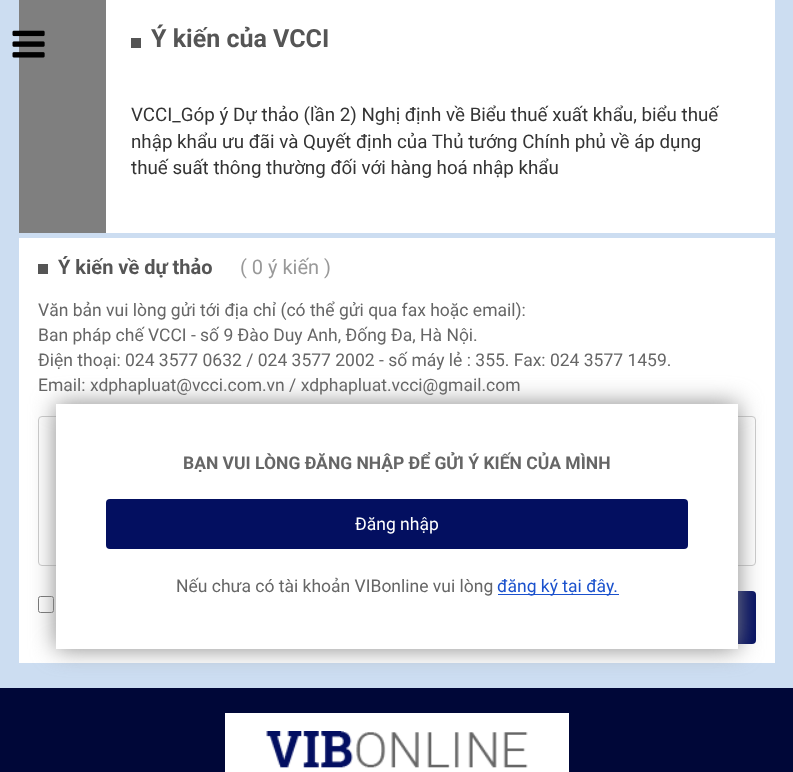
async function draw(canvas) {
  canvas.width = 793;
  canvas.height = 772;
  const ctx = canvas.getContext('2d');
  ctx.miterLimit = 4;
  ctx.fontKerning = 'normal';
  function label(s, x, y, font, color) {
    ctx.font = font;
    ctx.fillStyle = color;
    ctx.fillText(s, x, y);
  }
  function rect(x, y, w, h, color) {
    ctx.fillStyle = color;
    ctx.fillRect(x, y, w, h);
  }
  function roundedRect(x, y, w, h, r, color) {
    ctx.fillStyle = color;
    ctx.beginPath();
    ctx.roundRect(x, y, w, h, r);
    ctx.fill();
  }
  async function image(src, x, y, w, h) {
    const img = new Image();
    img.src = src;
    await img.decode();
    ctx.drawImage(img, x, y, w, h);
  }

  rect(0, 0, 793, 772, '#ccddf1');
  rect(19, 0, 87, 233, '#7f7f7f');
  await image('assets/img1.png', 12, 30, 33, 28);
  rect(106, 0, 669, 233, '#fff');
  rect(131, 38, 10, 10, '#555');
  label('Ý kiến của VCCI', 151, 47, 'bold 25px Roboto', '#555');
  label('VCCI_Góp ý Dự thảo (lần 2) Nghị định về Biểu thuế xuất khẩu, biểu thuế', 131, 121, '18.75px Roboto', '#343434');
  label('nhập khẩu ưu đãi và Quyết định của Thủ tướng Chính phủ về áp dụng', 131, 148, '18.75px Roboto', '#343434');
  label('thuế suất thông thường đối với hàng hoá nhập khẩu', 131, 174, '18.75px Roboto', '#343434');
  rect(19, 238, 756, 425, '#fff');
  rect(38, 264, 10, 10, '#555');
  label('Ý kiến về dự thảo', 58, 274, 'bold 20px Roboto', '#555');
  label('( 0 ý kiến )', 240, 274, '20px Roboto', '#999');
  label('Văn bản vui lòng gửi tới địa chỉ (có thể gửi qua fax hoặc email):', 38, 316, '17.5px Roboto', '#666');
  label('Ban pháp chế VCCI - số 9 Đào Duy Anh, Đống Đa, Hà Nội.', 38, 341, '17.5px Roboto', '#666');
  label('Điện thoại: 024 3577 0632 / 024 3577 2002 - số máy lẻ : 355. Fax: 024 3577 1459.', 38, 366, '17.5px Roboto', '#666');
  label('Email: xdphapluat@vcci.com.vn / xdphapluat.vcci@gmail.com', 38, 391, '17.5px Roboto', '#666');
  ctx.beginPath();
  ctx.roundRect(38.5, 416.5, 717, 149, 3.5);
  ctx.strokeStyle = '#ccc';
  ctx.stroke();
  ctx.beginPath();
  ctx.roundRect(38.5, 596.5, 15, 16, 2);
  ctx.strokeStyle = '#767676';
  ctx.stroke();
  roundedRect(550, 591, 206, 53, 4, '#030f61');
  ctx.fillStyle = '#888';
  ctx.filter = 'blur(12.5px)';
  ctx.beginPath();
  ctx.rect(56, 404, 682, 245);
  ctx.fill();
  ctx.filter = 'none';
  rect(56, 404, 682, 245, '#fff');
  label('BẠN VUI LÒNG ĐĂNG NHẬP ĐỂ GỬI Ý KIẾN CỦA MÌNH', 183, 469, 'bold 17.5px Roboto', '#666');
  roundedRect(106, 499, 582, 50, 4, '#030f60');
  label('Đăng nhập', 355, 530, '17.5px Roboto', '#fff');
  label('Nếu chưa có tài khoản VIBonline vui lòng', 176, 592, '17.5px Roboto', '#666');
  rect(498, 594, 121, 1, '#1a51cd');
  label('đăng ký tại đây.', 497, 592, '17.5px Roboto', '#1a51cd');
  rect(0, 688, 793, 84, '#000738');
  rect(225, 713, 344, 59, '#fff');
  await image('assets/img2.png', 266, 731, 262, 37);
}

draw(document.querySelector('canvas'));
